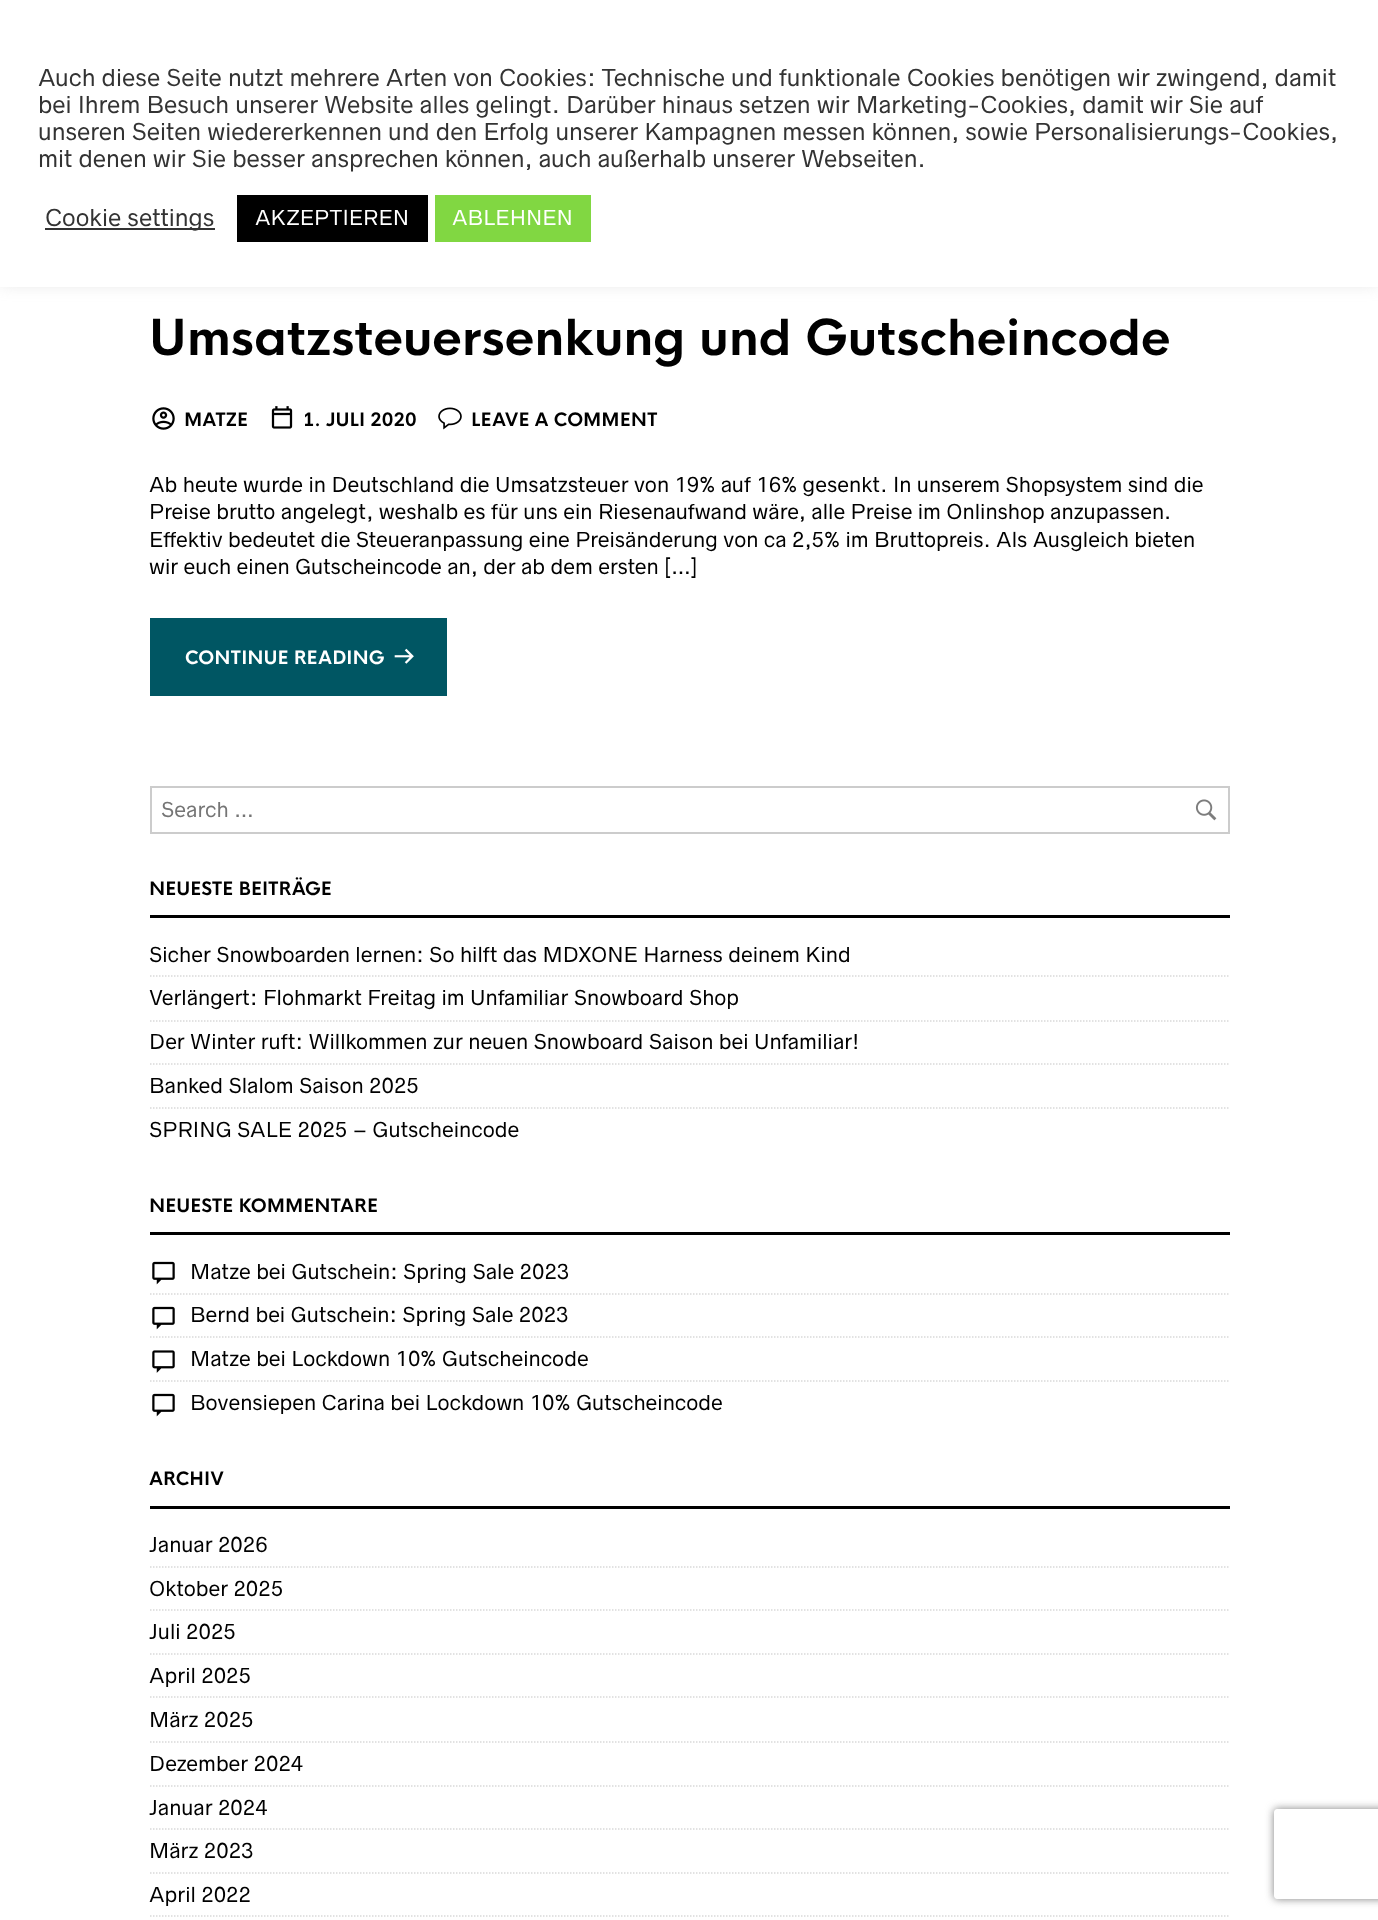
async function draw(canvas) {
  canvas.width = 1378;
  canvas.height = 1920;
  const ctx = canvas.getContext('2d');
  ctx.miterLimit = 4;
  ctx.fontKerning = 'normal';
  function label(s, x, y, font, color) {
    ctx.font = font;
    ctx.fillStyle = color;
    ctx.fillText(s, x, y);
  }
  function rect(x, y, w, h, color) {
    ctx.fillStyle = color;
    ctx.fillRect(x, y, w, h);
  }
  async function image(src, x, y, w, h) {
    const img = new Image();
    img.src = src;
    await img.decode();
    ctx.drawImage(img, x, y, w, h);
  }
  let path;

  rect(0, 0, 1378, 1920, '#fff');
  ctx.fillStyle = '#acabab4d';
  ctx.filter = 'blur(7.5px)';
  ctx.beginPath();
  ctx.rect(0, -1, 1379, 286);
  ctx.fill();
  ctx.filter = 'none';
  rect(0, 0, 1378, 287, '#fff');
  label('Auch diese Seite nutzt mehrere Arten von Cookies: Technische und funktionale Cookies benötigen wir zwingend, damit', 38, 86, '22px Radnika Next', '#333');
  label('bei Ihrem Besuch unserer Website alles gelingt. Darüber hinaus setzen wir Marketing-Cookies, damit wir Sie auf', 38, 113, '22px Radnika Next', '#333');
  label('unseren Seiten wiedererkennen und den Erfolg unserer Kampagnen messen können, sowie Personalisierungs-Cookies,', 38, 140, '22px Radnika Next', '#333');
  label('mit denen wir Sie besser ansprechen können, auch außerhalb unserer Webseiten.', 38, 167, '22px Radnika Next', '#333');
  rect(45, 228, 170, 2, '#333');
  label('Cookie settings', 45, 226, '22px Radnika Next', '#333');
  rect(237, 195, 191, 47, '#000');
  label('AKZEPTIEREN', 255, 225, '19.5px Radnika Next', '#fff');
  rect(435, 195, 156, 47, '#81d742');
  label('ABLEHNEN', 452, 225, '19.5px Radnika Next', '#fff');
  label('Umsatzsteuersenkung und Gutscheincode', 149, 355, 'bold 48.5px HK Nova', '#000');
  await image('assets/img1.png', 152, 407, 23, 23);
  label('MATZE', 184, 426, 'bold 18px HK Nova', '#000');
  await image('assets/img2.png', 271, 406, 22, 23);
  label('1. JULI 2020', 303, 426, 'bold 18px HK Nova', '#000');
  await image('assets/img3.png', 438, 407, 24, 23);
  label('LEAVE A COMMENT', 471, 426, 'bold 18px HK Nova', '#000');
  label('Ab heute wurde in Deutschland die Umsatzsteuer von 19% auf 16% gesenkt. In unserem Shopsystem sind die', 149, 492, '19.5px Radnika Next', '#000');
  label('Preise brutto angelegt, weshalb es für uns ein Riesenaufwand wäre, alle Preise im Onlinshop anzupassen.', 149, 519, '19.5px Radnika Next', '#000');
  label('Effektiv bedeutet die Steueranpassung eine Preisänderung von ca 2,5% im Bruttopreis. Als Ausgleich bieten', 149, 547, '19.5px Radnika Next', '#000');
  label('wir euch einen Gutscheincode an, der ab dem ersten […]', 149, 574, '19.5px Radnika Next', '#000');
  rect(150, 618, 297, 78, '#005663');
  label('CONTINUE READING', 185, 664, 'bold 18px HK Nova', '#fff');
  await image('assets/img4.png', 394, 648, 20, 16);
  ctx.strokeStyle = '#ccc';
  ctx.lineWidth = 2;
  ctx.strokeRect(151, 787, 1078, 46);
  label('Search …', 161, 817, '19.5px Radnika Next', '#757575');
  await image('assets/img5.png', 1195, 799, 22, 22);
  rect(150, 915, 1080, 3, '#000');
  label('NEUESTE BEITRÄGE', 149, 895, 'bold 18px HK Nova', '#000');
  path = new Path2D('M150 976H1230');
  ctx.strokeStyle = '#d9d9d9';
  ctx.lineWidth = 1.5;
  ctx.setLineDash([1.5, 1.5]);
  ctx.stroke(path);
  label('Sicher Snowboarden lernen: So hilft das MDXONE Harness deinem Kind', 149, 962, '19.5px Radnika Next', '#000');
  path = new Path2D('M150 1021H1230');
  ctx.stroke(path);
  label('Verlängert: Flohmarkt Freitag im Unfamiliar Snowboard Shop', 149, 1005, '19.5px Radnika Next', '#000');
  path = new Path2D('M150 1064H1230');
  ctx.stroke(path);
  label('Der Winter ruft: Willkommen zur neuen Snowboard Saison bei Unfamiliar!', 149, 1049, '19.5px Radnika Next', '#000');
  path = new Path2D('M150 1108H1230');
  ctx.stroke(path);
  label('Banked Slalom Saison 2025', 149, 1093, '19.5px Radnika Next', '#000');
  label('SPRING SALE 2025 – Gutscheincode', 149, 1137, '19.5px Radnika Next', '#000');
  rect(150, 1232, 1080, 3, '#000');
  label('NEUESTE KOMMENTARE', 149, 1212, 'bold 18px HK Nova', '#000');
  path = new Path2D('M150 1294H1230');
  ctx.stroke(path);
  await image('assets/img6.png', 152, 1261, 23, 24);
  label('Matze bei Gutschein: Spring Sale 2023', 190, 1279, '19.5px Radnika Next', '#000');
  path = new Path2D('M150 1337H1230');
  ctx.stroke(path);
  await image('assets/img6.png', 152, 1306, 23, 24);
  label('Bernd bei Gutschein: Spring Sale 2023', 190, 1322, '19.5px Radnika Next', '#000');
  path = new Path2D('M150 1381H1230');
  ctx.stroke(path);
  await image('assets/img7.png', 152, 1350, 23, 23);
  label('Matze bei Lockdown 10% Gutscheincode', 190, 1366, '19.5px Radnika Next', '#000');
  await image('assets/img6.png', 152, 1393, 23, 24);
  label('Bovensiepen Carina bei Lockdown 10% Gutscheincode', 190, 1410, '19.5px Radnika Next', '#000');
  rect(150, 1506, 1080, 3, '#000');
  label('ARCHIV', 149, 1485, 'bold 18px HK Nova', '#000');
  path = new Path2D('M150 1567H1230');
  ctx.stroke(path);
  label('Januar 2026', 149, 1552, '19.5px Radnika Next', '#000');
  path = new Path2D('M150 1610H1230');
  ctx.stroke(path);
  label('Oktober 2025', 149, 1596, '19.5px Radnika Next', '#000');
  path = new Path2D('M150 1654H1230');
  ctx.stroke(path);
  label('Juli 2025', 149, 1639, '19.5px Radnika Next', '#000');
  path = new Path2D('M150 1697H1230');
  ctx.stroke(path);
  label('April 2025', 149, 1683, '19.5px Radnika Next', '#000');
  path = new Path2D('M150 1742H1230');
  ctx.stroke(path);
  label('März 2025', 149, 1727, '19.5px Radnika Next', '#000');
  path = new Path2D('M150 1786H1230');
  ctx.stroke(path);
  label('Dezember 2024', 149, 1771, '19.5px Radnika Next', '#000');
  path = new Path2D('M150 1829H1230');
  ctx.stroke(path);
  label('Januar 2024', 149, 1815, '19.5px Radnika Next', '#000');
  path = new Path2D('M150 1873H1230');
  ctx.stroke(path);
  label('März 2023', 149, 1858, '19.5px Radnika Next', '#000');
  path = new Path2D('M150 1916H1230');
  ctx.stroke(path);
  label('April 2022', 149, 1902, '19.5px Radnika Next', '#000');
  ctx.save();
  path = new Path2D('M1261 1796H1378V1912H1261ZM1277 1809H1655C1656.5 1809 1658 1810.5 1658 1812V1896C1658 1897.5 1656.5 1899 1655 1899H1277C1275.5 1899 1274 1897.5 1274 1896V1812C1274 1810.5 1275.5 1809 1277 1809Z');
  ctx.clip(path, 'evenodd');
  ctx.fillStyle = '#808080';
  ctx.filter = 'blur(4px)';
  ctx.beginPath();
  ctx.roundRect(1274, 1809, 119, 90, 3);
  ctx.fill();
  ctx.filter = 'none';
  ctx.restore();
}

draw(document.querySelector('canvas'));
